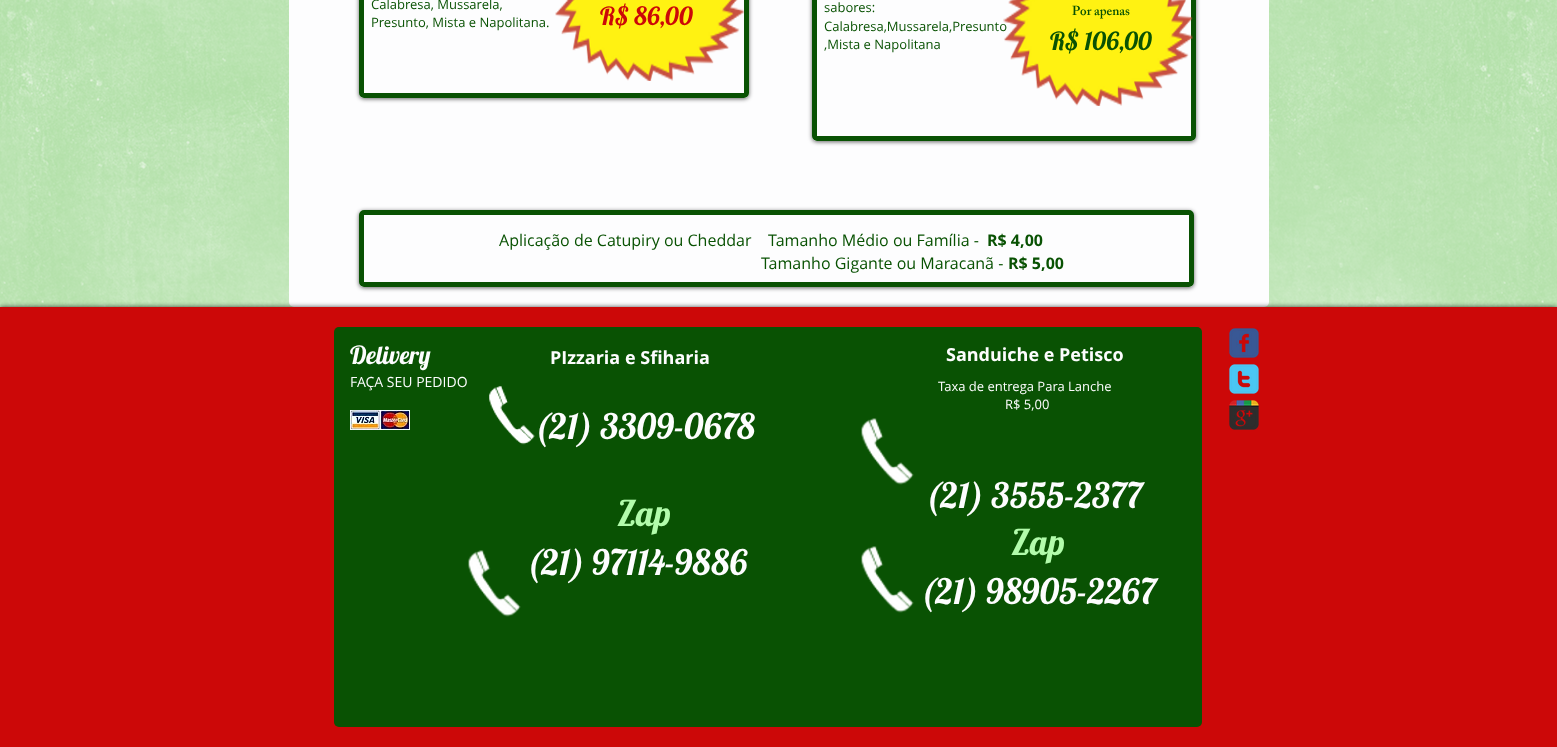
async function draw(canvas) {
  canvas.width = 1557;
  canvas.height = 747;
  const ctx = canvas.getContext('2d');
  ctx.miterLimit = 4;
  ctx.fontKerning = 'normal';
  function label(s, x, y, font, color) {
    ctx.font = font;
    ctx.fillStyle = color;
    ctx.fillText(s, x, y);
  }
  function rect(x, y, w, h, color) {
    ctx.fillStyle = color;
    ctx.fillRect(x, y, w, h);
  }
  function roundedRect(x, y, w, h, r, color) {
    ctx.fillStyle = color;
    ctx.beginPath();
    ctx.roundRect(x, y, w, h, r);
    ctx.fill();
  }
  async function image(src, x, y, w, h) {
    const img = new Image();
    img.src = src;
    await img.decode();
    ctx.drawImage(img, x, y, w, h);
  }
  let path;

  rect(0, 0, 1557, 747, '#b1e0a7');
  await image('assets/img1.png', 0, 0, 1557, 307);
  roundedRect(289, -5, 980, 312, 5, '#fdfdfe');
  ctx.save();
  path = new Path2D('M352 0H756V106H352ZM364-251H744C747-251 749-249 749-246V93C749 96 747 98 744 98H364C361 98 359 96 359 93V-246C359-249 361-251 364-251Z');
  ctx.clip(path, 'evenodd');
  ctx.fillStyle = '#00000099';
  ctx.filter = 'blur(2px)';
  ctx.beginPath();
  ctx.roundRect(359, -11, 390, 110, 5);
  ctx.fill();
  ctx.filter = 'none';
  ctx.restore();
  ctx.beginPath();
  ctx.roundRect(361.5, -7.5, 385, 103, 2.5);
  ctx.strokeStyle = '#095203';
  ctx.lineWidth = 5;
  ctx.stroke();
  label('Calabresa, Mussarela,', 371, 9, '13px Open Sans', '#095203');
  label('Presunto, Mista e Napolitana.', 371, 27, '13px Open Sans', '#095203');
  await image('assets/img2.png', 555, 0, 189, 81);
  label('R$ 86,00', 600, 25, '25px Lobster', '#cc0808');
  ctx.save();
  path = new Path2D('M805 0H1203V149H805ZM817-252H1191C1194-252 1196-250 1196-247V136C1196 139 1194 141 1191 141H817C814 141 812 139 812 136V-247C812-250 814-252 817-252Z');
  ctx.clip(path, 'evenodd');
  ctx.fillStyle = '#00000099';
  ctx.filter = 'blur(2px)';
  ctx.beginPath();
  ctx.roundRect(812, -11, 384, 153, 5);
  ctx.fill();
  ctx.filter = 'none';
  ctx.restore();
  ctx.beginPath();
  ctx.roundRect(814.5, -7.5, 379, 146, 2.5);
  ctx.stroke();
  label('sabores:', 824, 12, '13px Open Sans', '#095203');
  await image('assets/img3.png', 1003, 0, 190, 106);
  label('Calabresa,Mussarela,Presunto', 824, 31, '13px Open Sans', '#095203');
  label(',Mista e Napolitana', 824, 49, '13px Open Sans', '#095203');
  label('Por apenas', 1072, 15, '600 13px "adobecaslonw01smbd"', '#095203');
  label('R$ 106,00', 1050, 50, '25px Lobster', '#095203');
  ctx.save();
  path = new Path2D('M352 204H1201V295H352ZM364 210H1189C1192 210 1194 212 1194 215V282C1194 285 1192 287 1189 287H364C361 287 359 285 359 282V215C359 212 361 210 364 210Z');
  ctx.clip(path, 'evenodd');
  ctx.fillStyle = '#00000099';
  ctx.filter = 'blur(2px)';
  ctx.beginPath();
  ctx.roundRect(359, 211, 835, 77, 5);
  ctx.fill();
  ctx.filter = 'none';
  ctx.restore();
  ctx.beginPath();
  ctx.roundRect(361.5, 212.5, 830, 72, 2.5);
  ctx.stroke();
  label('Aplicação de Catupiry ou Cheddar    Tamanho Médio ou Família -', 499, 246, '16px Open Sans', '#095203');
  label('R$ 4,00', 987, 246, 'bold 16px Open Sans', '#095203');
  label('Tamanho Gigante ou Maracanã -', 761, 269, '16px Open Sans', '#095203');
  label('R$ 5,00', 1008, 269, 'bold 16px Open Sans', '#095203');
  ctx.fillStyle = '#000000b3';
  ctx.filter = 'blur(2.5px)';
  ctx.beginPath();
  ctx.rect(0, 307, 1557, 440);
  ctx.fill();
  ctx.filter = 'none';
  rect(0, 307, 1557, 440, '#cc0808');
  roundedRect(334, 327, 868, 400, 5, '#095203');
  label('Delivery', 350, 364, '25px Lobster', '#fdfdfe');
  label('FAÇA SEU PEDIDO', 350, 387, '14px Open Sans', '#fdfdfe');
  label('PIzzaria e Sfiharia', 550, 364, 'bold 18px Open Sans', '#fdfdfe');
  label('Sanduiche e Petisco', 946, 361, 'bold 18px Open Sans', '#fdfdfe');
  await image('assets/img4.png', 350, 410, 60, 20);
  await image('assets/img5.png', 489, 386, 46, 59);
  label('(21) 3309-0678', 534, 439, '35px Lobster', '#fdfdfe');
  await image('assets/img6.png', 861, 418, 53, 67);
  label('Taxa de entrega Para Lanche', 938, 391, '13px Open Sans', '#fdfdfe');
  label('R$ 5,00', 1005, 409, '13px Open Sans', '#fdfdfe');
  label('(21) 3555-2377', 925, 508, '35px Lobster', '#fdfdfe');
  await image('assets/img7.png', 468, 550, 53, 67);
  await image('assets/img8.png', 861, 546, 53, 67);
  label('Zap', 1011, 555, '35px Lobster', '#b2fcab');
  label('(21) 98905-2267', 920, 604, '35px Lobster', '#fdfdfe');
  await image('assets/img9.png', 1229, 328, 30, 30);
  await image('assets/img10.png', 1229, 364, 30, 30);
  await image('assets/img11.png', 1229, 400, 30, 30);
  label('Zap', 617, 526, '35px Lobster', '#b2fcab');
  label('(21) 97114-9886', 526, 575, '35px Lobster', '#fdfdfe');
}

draw(document.querySelector('canvas'));
